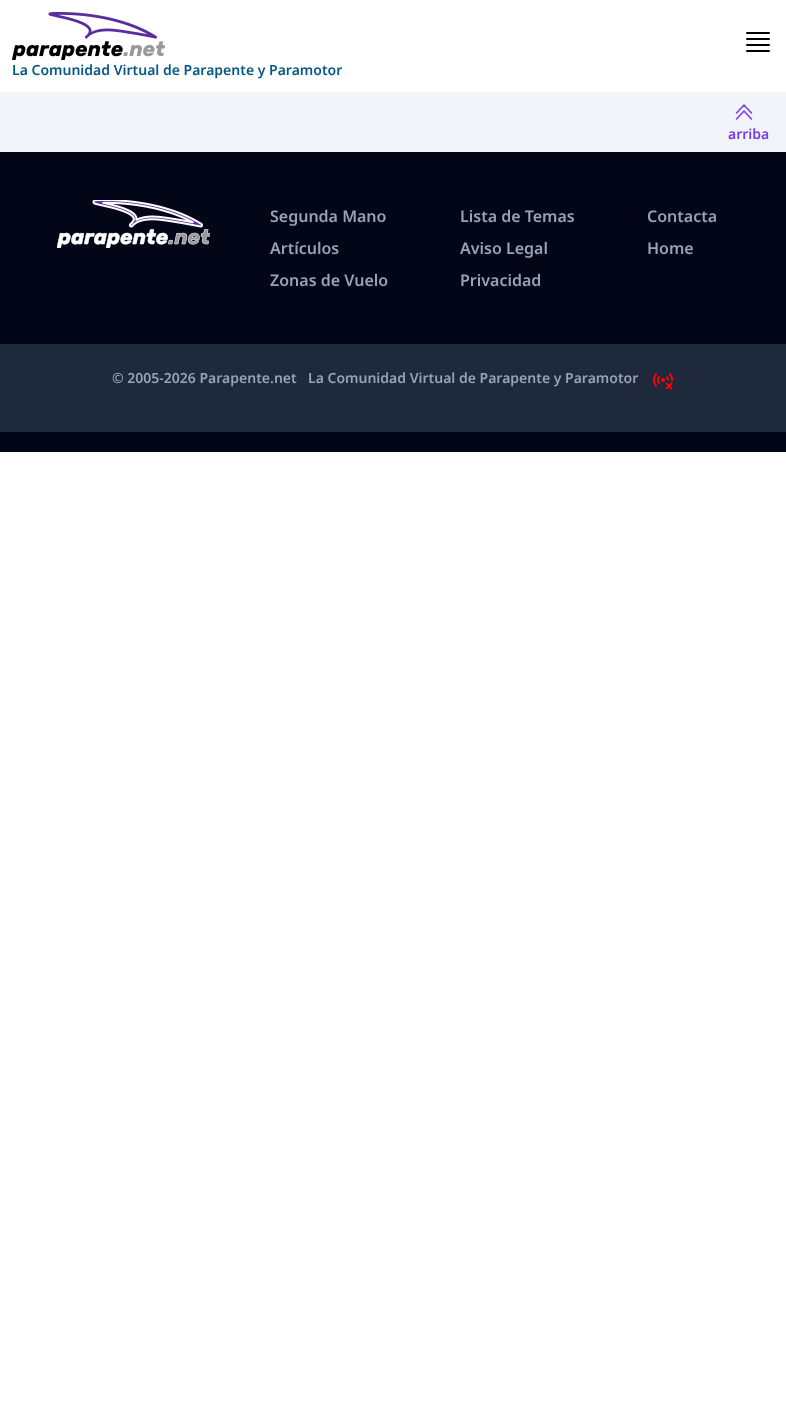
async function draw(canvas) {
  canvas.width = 786;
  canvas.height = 1415;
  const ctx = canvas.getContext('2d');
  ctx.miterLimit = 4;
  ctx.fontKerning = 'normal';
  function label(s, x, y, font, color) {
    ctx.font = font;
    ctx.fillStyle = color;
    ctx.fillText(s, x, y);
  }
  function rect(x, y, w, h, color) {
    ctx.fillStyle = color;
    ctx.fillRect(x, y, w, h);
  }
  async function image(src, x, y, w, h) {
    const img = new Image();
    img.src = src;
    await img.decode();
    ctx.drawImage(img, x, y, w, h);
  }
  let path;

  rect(0, 0, 786, 1415, '#fff');
  path = new Path2D('M747 33H769M747 39H769M747 45H769M747 51H769');
  ctx.strokeStyle = '#000';
  ctx.lineWidth = 2;
  ctx.lineCap = 'round';
  ctx.lineJoin = 'round';
  ctx.stroke(path);
  await image('assets/img1.png', 12, 12, 153, 48);
  label('La Comunidad Virtual de Parapente y Paramotor', 12, 75, '600 14px Noto Sans', '#075985');
  rect(0, 152, 786, 300, '#020617');
  rect(0, 92, 786, 60, '#f1f5f9');
  path = new Path2D('M736.5 113L744 105L751.5 113M736.5 119L744 111L751.5 119');
  ctx.strokeStyle = '#7c3aed';
  ctx.lineWidth = 1.5;
  ctx.stroke(path);
  label('arriba', 728, 139, '600 14px Noto Sans', '#7c3aed');
  await image('assets/img2.png', 57, 200, 153, 48);
  label('Segunda Mano', 270, 222, '600 16px Noto Sans', '#94a3b8');
  label('Artículos', 270, 254, '600 16px Noto Sans', '#94a3b8');
  label('Zonas de Vuelo', 270, 286, '600 16px Noto Sans', '#94a3b8');
  label('Lista de Temas', 460, 222, '600 16px Noto Sans', '#94a3b8');
  label('Aviso Legal', 460, 254, '600 16px Noto Sans', '#94a3b8');
  label('Privacidad', 460, 286, '600 16px Noto Sans', '#94a3b8');
  label('Contacta', 647, 222, '600 16px Noto Sans', '#94a3b8');
  label('Home', 647, 254, '600 16px Noto Sans', '#94a3b8');
  rect(0, 344, 786, 88, '#1e293b');
  label('© 2005-2026 Parapente.net', 112, 383, '600 14px Noto Sans', '#94a3b8');
  label('La Comunidad Virtual de Parapente y Paramotor', 308, 383, '600 14px Noto Sans', '#94a3b8');
  await image('assets/img3.png', 653, 373, 20, 17);
}

draw(document.querySelector('canvas'));
